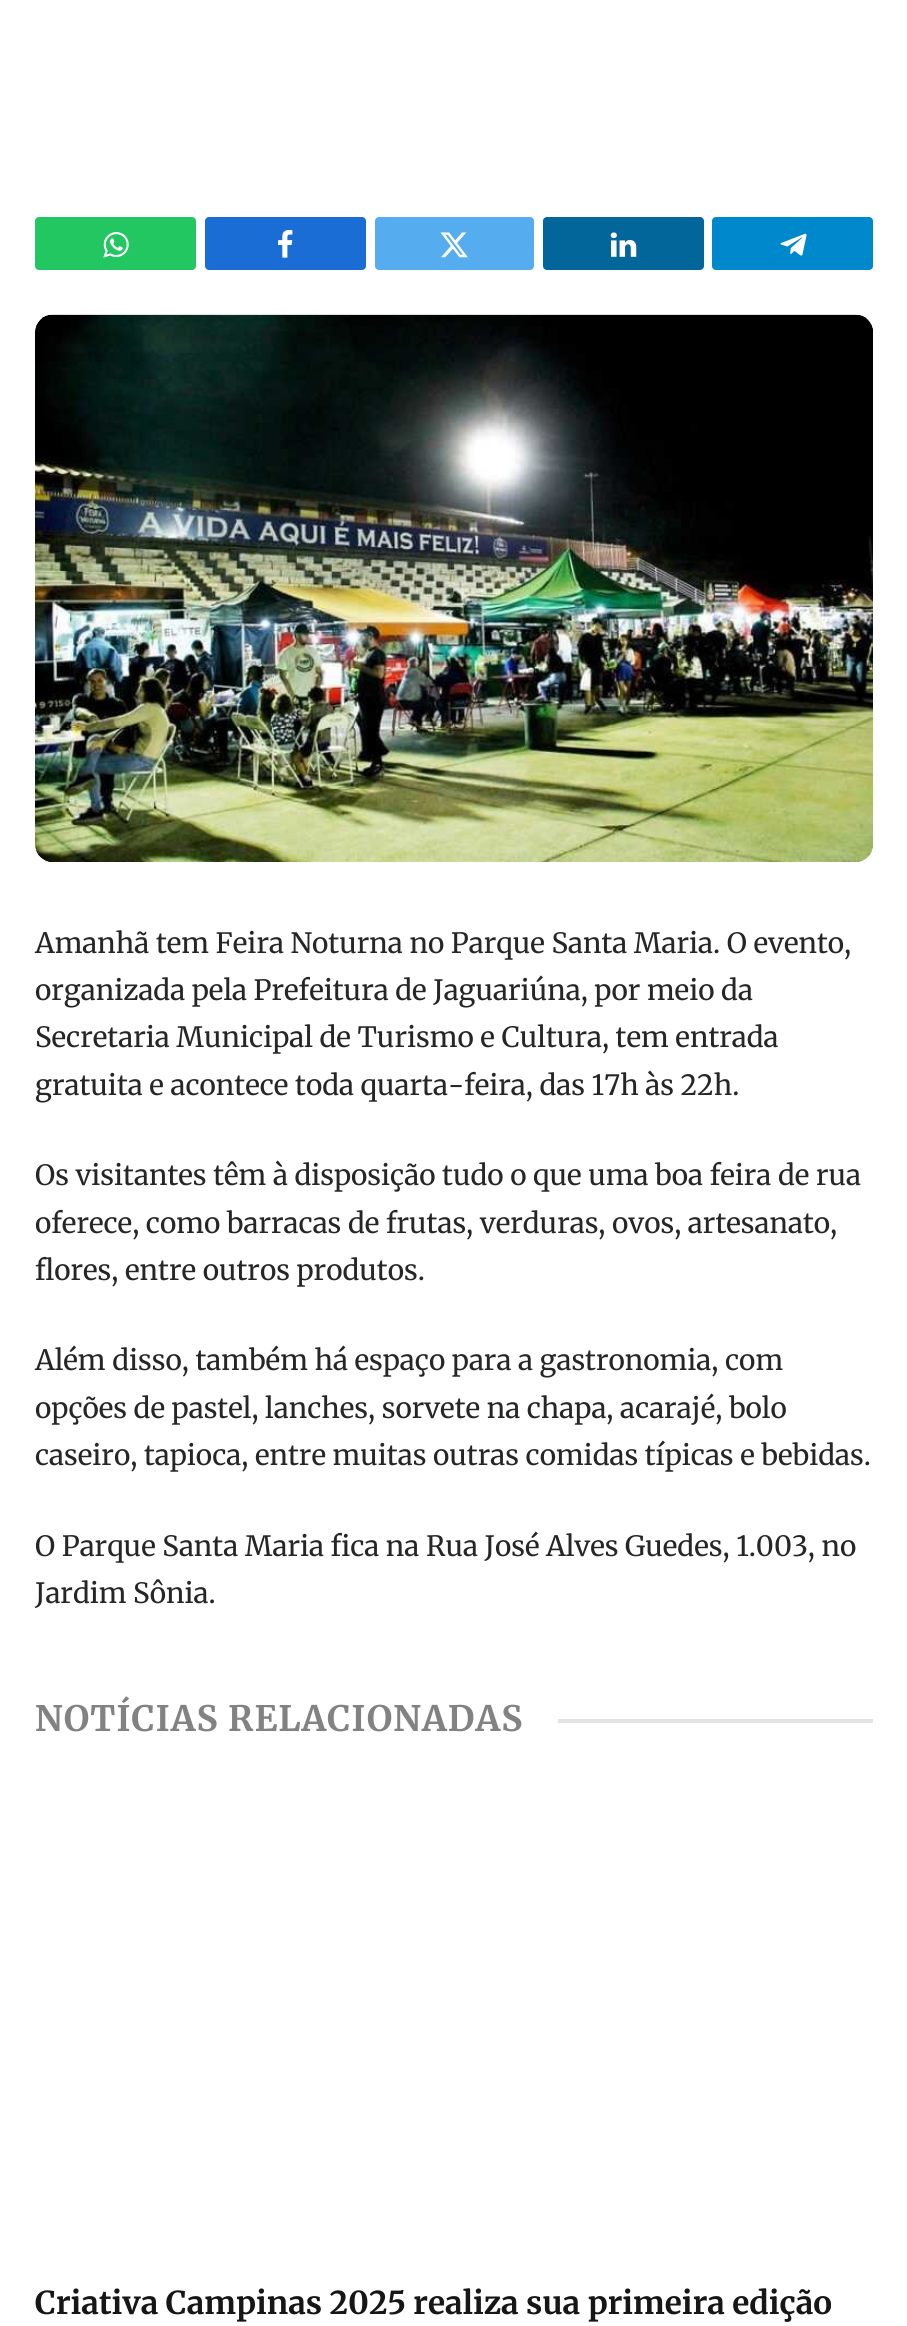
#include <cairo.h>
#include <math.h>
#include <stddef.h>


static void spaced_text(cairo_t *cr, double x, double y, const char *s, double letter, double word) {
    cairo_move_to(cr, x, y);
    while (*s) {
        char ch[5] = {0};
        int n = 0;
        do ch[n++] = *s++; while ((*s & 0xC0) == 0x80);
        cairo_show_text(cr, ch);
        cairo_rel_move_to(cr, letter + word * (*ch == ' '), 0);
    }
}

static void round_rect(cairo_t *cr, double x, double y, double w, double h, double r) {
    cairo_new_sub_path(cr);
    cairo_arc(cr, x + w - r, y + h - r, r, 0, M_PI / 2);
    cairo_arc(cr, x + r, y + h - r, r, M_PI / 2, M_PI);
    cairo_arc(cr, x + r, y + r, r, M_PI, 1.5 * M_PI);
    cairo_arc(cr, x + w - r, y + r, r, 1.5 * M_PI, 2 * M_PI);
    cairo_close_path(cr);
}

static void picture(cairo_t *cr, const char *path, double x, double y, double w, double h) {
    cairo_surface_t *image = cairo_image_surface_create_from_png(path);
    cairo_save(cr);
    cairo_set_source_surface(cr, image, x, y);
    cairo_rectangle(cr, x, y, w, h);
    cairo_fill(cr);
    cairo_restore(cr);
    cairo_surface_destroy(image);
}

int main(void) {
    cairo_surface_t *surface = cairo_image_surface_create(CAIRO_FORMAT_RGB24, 907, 2326);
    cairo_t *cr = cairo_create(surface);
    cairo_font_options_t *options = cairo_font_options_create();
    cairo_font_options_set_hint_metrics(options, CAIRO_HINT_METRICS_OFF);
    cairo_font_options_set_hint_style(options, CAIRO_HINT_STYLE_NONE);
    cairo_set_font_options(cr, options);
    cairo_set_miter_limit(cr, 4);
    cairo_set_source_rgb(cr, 1, 1, 1);
    cairo_paint(cr);
    cairo_set_source_rgb(cr, 0.137, 0.78, 0.38);
    round_rect(cr, 35, 217, 161, 53, 4);
    cairo_fill(cr);
    picture(cr, "img1.png", 103, 232, 26, 26);
    cairo_set_source_rgb(cr, 0.102, 0.427, 0.831);
    round_rect(cr, 205, 217, 161, 53, 4);
    cairo_fill(cr);
    picture(cr, "img2.png", 278, 230, 15, 28);
    cairo_set_source_rgb(cr, 0.333, 0.675, 0.937);
    round_rect(cr, 375, 217, 159, 53, 4);
    cairo_fill(cr);
    picture(cr, "img3.png", 440, 232, 28, 26);
    cairo_set_source_rgb(cr, 0.008, 0.4, 0.604);
    round_rect(cr, 543, 217, 161, 53, 4);
    cairo_fill(cr);
    picture(cr, "img4.png", 610, 232, 27, 25);
    cairo_set_source_rgb(cr, 0, 0.533, 0.8);
    round_rect(cr, 712, 217, 161, 53, 4);
    cairo_fill(cr);
    picture(cr, "img5.png", 780, 233, 27, 23);
    picture(cr, "img6.png", 35, 314, 838, 548);
    cairo_select_font_face(cr, "Merriweather", CAIRO_FONT_SLANT_NORMAL, CAIRO_FONT_WEIGHT_NORMAL);
    cairo_set_font_size(cr, 27.9);
    cairo_set_source_rgb(cr, 0.149, 0.149, 0.149);
    cairo_move_to(cr, 35, 953);
    cairo_show_text(cr, "Amanhã tem Feira Noturna no Parque Santa Maria. O evento,");
    cairo_move_to(cr, 35, 1000);
    cairo_show_text(cr, "organizada pela Prefeitura de Jaguariúna, por meio da");
    cairo_move_to(cr, 35, 1047);
    cairo_show_text(cr, "Secretaria Municipal de Turismo e Cultura, tem entrada");
    cairo_move_to(cr, 35, 1095);
    cairo_show_text(cr, "gratuita e acontece toda quarta-feira, das 17h às 22h.");
    cairo_move_to(cr, 35, 1185);
    cairo_show_text(cr, "Os visitantes têm à disposição tudo o que uma boa feira de rua");
    cairo_move_to(cr, 35, 1233);
    cairo_show_text(cr, "oferece, como barracas de frutas, verduras, ovos, artesanato,");
    cairo_move_to(cr, 35, 1280);
    cairo_show_text(cr, "flores, entre outros produtos.");
    cairo_move_to(cr, 35, 1370);
    cairo_show_text(cr, "Além disso, também há espaço para a gastronomia, com");
    cairo_move_to(cr, 35, 1418);
    cairo_show_text(cr, "opções de pastel, lanches, sorvete na chapa, acarajé, bolo");
    cairo_move_to(cr, 35, 1465);
    cairo_show_text(cr, "caseiro, tapioca, entre muitas outras comidas típicas e bebidas.");
    cairo_move_to(cr, 35, 1556);
    cairo_show_text(cr, "O Parque Santa Maria fica na Rua José Alves Guedes, 1.003, no");
    cairo_move_to(cr, 35, 1603);
    cairo_show_text(cr, "Jardim Sônia.");
    cairo_select_font_face(cr, "Merriweather", CAIRO_FONT_SLANT_NORMAL, CAIRO_FONT_WEIGHT_BOLD);
    cairo_set_font_size(cr, 35);
    cairo_set_source_rgb(cr, 0.51, 0.51, 0.51);
    spaced_text(cr, 35, 1731, "NOTÍCIAS RELACIONADAS", 1.05, 0);
    cairo_set_source_rgb(cr, 0.886, 0.886, 0.886);
    cairo_rectangle(cr, 558, 1719, 315, 4);
    cairo_fill(cr);
    cairo_set_font_size(cr, 31.5);
    cairo_set_source_rgb(cr, 0.086, 0.086, 0.086);
    cairo_move_to(cr, 35, 2314);
    cairo_show_text(cr, "Criativa Campinas 2025 realiza sua primeira edição");
    cairo_surface_write_to_png(surface, "page.png");
    cairo_font_options_destroy(options);
    cairo_destroy(cr);
    cairo_surface_destroy(surface);
    return 0;
}
